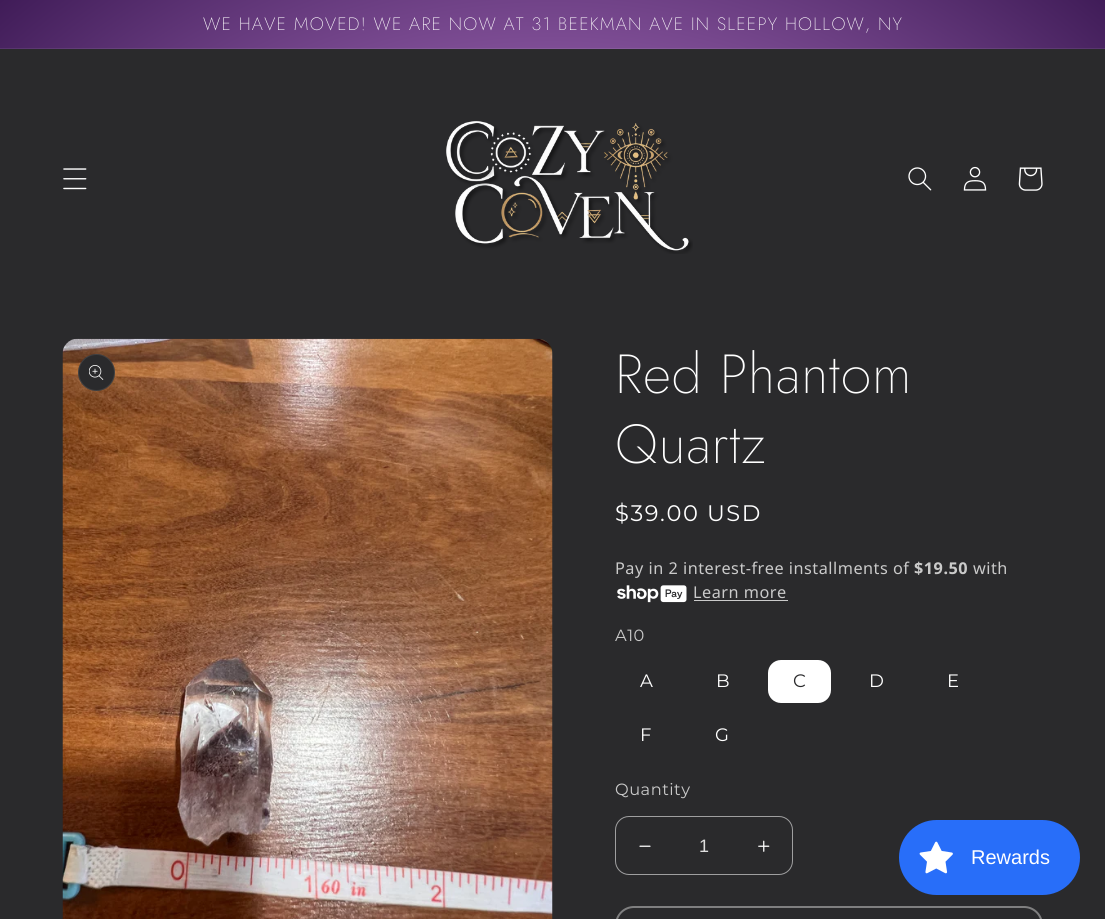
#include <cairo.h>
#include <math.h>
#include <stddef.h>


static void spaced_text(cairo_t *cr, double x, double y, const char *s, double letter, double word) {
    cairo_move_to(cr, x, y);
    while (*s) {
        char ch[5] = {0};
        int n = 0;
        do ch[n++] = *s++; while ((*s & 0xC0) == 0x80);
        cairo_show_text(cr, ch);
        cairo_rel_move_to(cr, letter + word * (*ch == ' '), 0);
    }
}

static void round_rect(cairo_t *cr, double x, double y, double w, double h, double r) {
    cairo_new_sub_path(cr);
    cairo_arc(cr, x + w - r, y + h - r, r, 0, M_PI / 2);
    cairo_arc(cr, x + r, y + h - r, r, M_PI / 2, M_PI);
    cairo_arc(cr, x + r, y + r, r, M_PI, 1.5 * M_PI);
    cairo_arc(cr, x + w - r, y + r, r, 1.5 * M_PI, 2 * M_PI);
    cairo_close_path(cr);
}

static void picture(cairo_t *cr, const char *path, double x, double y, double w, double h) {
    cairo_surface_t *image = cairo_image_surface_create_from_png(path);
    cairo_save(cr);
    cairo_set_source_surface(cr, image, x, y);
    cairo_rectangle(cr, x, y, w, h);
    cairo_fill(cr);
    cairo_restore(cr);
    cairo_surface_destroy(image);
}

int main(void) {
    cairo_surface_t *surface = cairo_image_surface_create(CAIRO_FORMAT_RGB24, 1105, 919);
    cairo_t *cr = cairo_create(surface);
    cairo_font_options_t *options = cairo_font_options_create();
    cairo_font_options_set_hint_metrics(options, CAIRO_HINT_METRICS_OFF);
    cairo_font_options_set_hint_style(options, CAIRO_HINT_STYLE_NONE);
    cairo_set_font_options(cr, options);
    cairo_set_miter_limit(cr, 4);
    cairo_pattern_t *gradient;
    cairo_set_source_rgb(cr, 0.165, 0.165, 0.173);
    cairo_paint(cr);
    gradient = cairo_pattern_create_radial(0, 0, 0, 0, 0, 1);
    cairo_pattern_set_matrix(gradient, &(cairo_matrix_t){1.0 / 781, 0, 0, 1.0 / 651, -1.0 * 553 / 781, -1.0 * 460 / 651});
    cairo_pattern_add_color_stop_rgba(gradient, 0, 0.906, 0.631, 0.988, 1);
    cairo_pattern_add_color_stop_rgba(gradient, 1, 0.251, 0.11, 0.345, 1);
    cairo_set_source(cr, gradient);
    cairo_pattern_destroy(gradient);
    cairo_rectangle(cr, 0, 0, 1105, 48);
    cairo_fill(cr);
    gradient = cairo_pattern_create_radial(0, 0, 0, 0, 0, 1);
    cairo_pattern_set_matrix(gradient, &(cairo_matrix_t){1.0 / 781, 0, 0, 1.0 / 651, -1.0 * 553 / 781, -1.0 * 460 / 651});
    cairo_pattern_add_color_stop_rgba(gradient, 0, 0.914, 0.663, 0.988, 1);
    cairo_pattern_add_color_stop_rgba(gradient, 1, 0.31, 0.18, 0.396, 1);
    cairo_set_source(cr, gradient);
    cairo_pattern_destroy(gradient);
    cairo_rectangle(cr, 0, 48, 1105, 1);
    cairo_fill(cr);
    cairo_select_font_face(cr, "Jost ExtraLight", CAIRO_FONT_SLANT_NORMAL, CAIRO_FONT_WEIGHT_NORMAL);
    cairo_set_font_size(cr, 17.9);
    cairo_set_source_rgb(cr, 1, 1, 1);
    spaced_text(cr, 203, 30, "WE HAVE MOVED! WE ARE NOW AT 31 BEEKMAN AVE IN SLEEPY HOLLOW, NY", 1.25, 0);
    picture(cr, "img1.png", 63, 168, 24, 22);
    picture(cr, "img2.png", 446, 120, 247, 134);
    picture(cr, "img3.png", 908, 167, 24, 24);
    picture(cr, "img4.png", 963, 166, 24, 25);
    picture(cr, "img5.png", 1018, 167, 25, 24);
    picture(cr, "img6.png", 62, 338, 491, 581);
    cairo_set_source_rgb(cr, 0.165, 0.165, 0.173);
    cairo_arc(cr, 96.5, 372.5, 18.5, 0, 2 * M_PI);
    cairo_fill(cr);
    cairo_arc(cr, 96.5, 372.5, 18, 0, 2 * M_PI);
    cairo_set_source_rgba(cr, 1, 1, 1, 0.1);
    cairo_set_line_width(cr, 1);
    cairo_stroke(cr);
    picture(cr, "img7.png", 89, 365, 15, 15);
    cairo_set_font_size(cr, 55);
    cairo_set_source_rgb(cr, 1, 1, 1);
    spaced_text(cr, 615, 393, "Red Phantom", 0.75, 0);
    spaced_text(cr, 615, 463, "Quartz", 0.75, 0);
    cairo_select_font_face(cr, "Montserrat", CAIRO_FONT_SLANT_NORMAL, CAIRO_FONT_WEIGHT_NORMAL);
    cairo_set_font_size(cr, 22.5);
    spaced_text(cr, 615, 521, "$39.00 USD", 1.6, 0);
    cairo_select_font_face(cr, "Noto Sans", CAIRO_FONT_SLANT_NORMAL, CAIRO_FONT_WEIGHT_NORMAL);
    cairo_set_font_size(cr, 16.25);
    cairo_set_source_rgb(cr, 0.792, 0.792, 0.792);
    spaced_text(cr, 615, 574, "Pay in 2 interest-free installments of", 0.5, 0);
    cairo_select_font_face(cr, "Noto Sans", CAIRO_FONT_SLANT_NORMAL, CAIRO_FONT_WEIGHT_BOLD);
    spaced_text(cr, 914, 574, "$19.50", 0.5, 0);
    cairo_select_font_face(cr, "Noto Sans", CAIRO_FONT_SLANT_NORMAL, CAIRO_FONT_WEIGHT_NORMAL);
    spaced_text(cr, 973, 574, "with", 0.5, 0);
    picture(cr, "img8.png", 617, 585, 70, 18);
    spaced_text(cr, 693, 598, "Learn more", 0.5, 0);
    cairo_rectangle(cr, 694, 600, 94, 1);
    cairo_fill(cr);
    cairo_select_font_face(cr, "Montserrat", CAIRO_FONT_SLANT_NORMAL, CAIRO_FONT_WEIGHT_NORMAL);
    spaced_text(cr, 615, 641, "A10", 0.5, 0);
    cairo_set_font_size(cr, 18);
    cairo_set_source_rgb(cr, 1, 1, 1);
    spaced_text(cr, 640, 687, "A", 1.25, 0);
    spaced_text(cr, 716, 687, "B", 1.25, 0);
    round_rect(cr, 768, 660, 63, 43, 13);
    cairo_fill(cr);
    cairo_set_source_rgb(cr, 0.165, 0.165, 0.173);
    spaced_text(cr, 793, 687, "C", 1.25, 0);
    cairo_set_source_rgb(cr, 1, 1, 1);
    spaced_text(cr, 869, 687, "D", 1.25, 0);
    spaced_text(cr, 947, 687, "E", 1.25, 0);
    spaced_text(cr, 640, 741, "F", 1.25, 0);
    spaced_text(cr, 715, 741, "G", 1.25, 0);
    cairo_set_font_size(cr, 16.25);
    cairo_set_source_rgb(cr, 0.792, 0.792, 0.792);
    spaced_text(cr, 615, 795, "Quantity", 0.5, 0);
    picture(cr, "img9.png", 639, 845, 12, 2);
    picture(cr, "img10.png", 758, 840, 12, 12);
    round_rect(cr, 615.5, 816.5, 177, 58, 13.5);
    cairo_set_source_rgb(cr, 0.624, 0.624, 0.627);
    cairo_stroke(cr);
    cairo_select_font_face(cr, "Liberation Sans", CAIRO_FONT_SLANT_NORMAL, CAIRO_FONT_WEIGHT_NORMAL);
    cairo_set_font_size(cr, 18);
    cairo_set_source_rgb(cr, 0.875, 0.875, 0.875);
    cairo_move_to(cr, 699, 852);
    cairo_show_text(cr, "1");
    round_rect(cr, 616, 907, 426, 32, 18);
    cairo_set_source_rgb(cr, 0.498, 0.498, 0.502);
    cairo_set_line_width(cr, 2);
    cairo_stroke(cr);
    cairo_set_source_rgb(cr, 0.157, 0.431, 0.973);
    round_rect(cr, 899, 820, 181, 75, 37.5);
    cairo_fill(cr);
    picture(cr, "img11.png", 919, 841, 34, 33);
    cairo_set_font_size(cr, 20);
    cairo_set_source_rgb(cr, 1, 1, 1);
    cairo_move_to(cr, 971, 864);
    cairo_show_text(cr, "Rewards");
    cairo_surface_write_to_png(surface, "page.png");
    cairo_font_options_destroy(options);
    cairo_destroy(cr);
    cairo_surface_destroy(surface);
    return 0;
}
